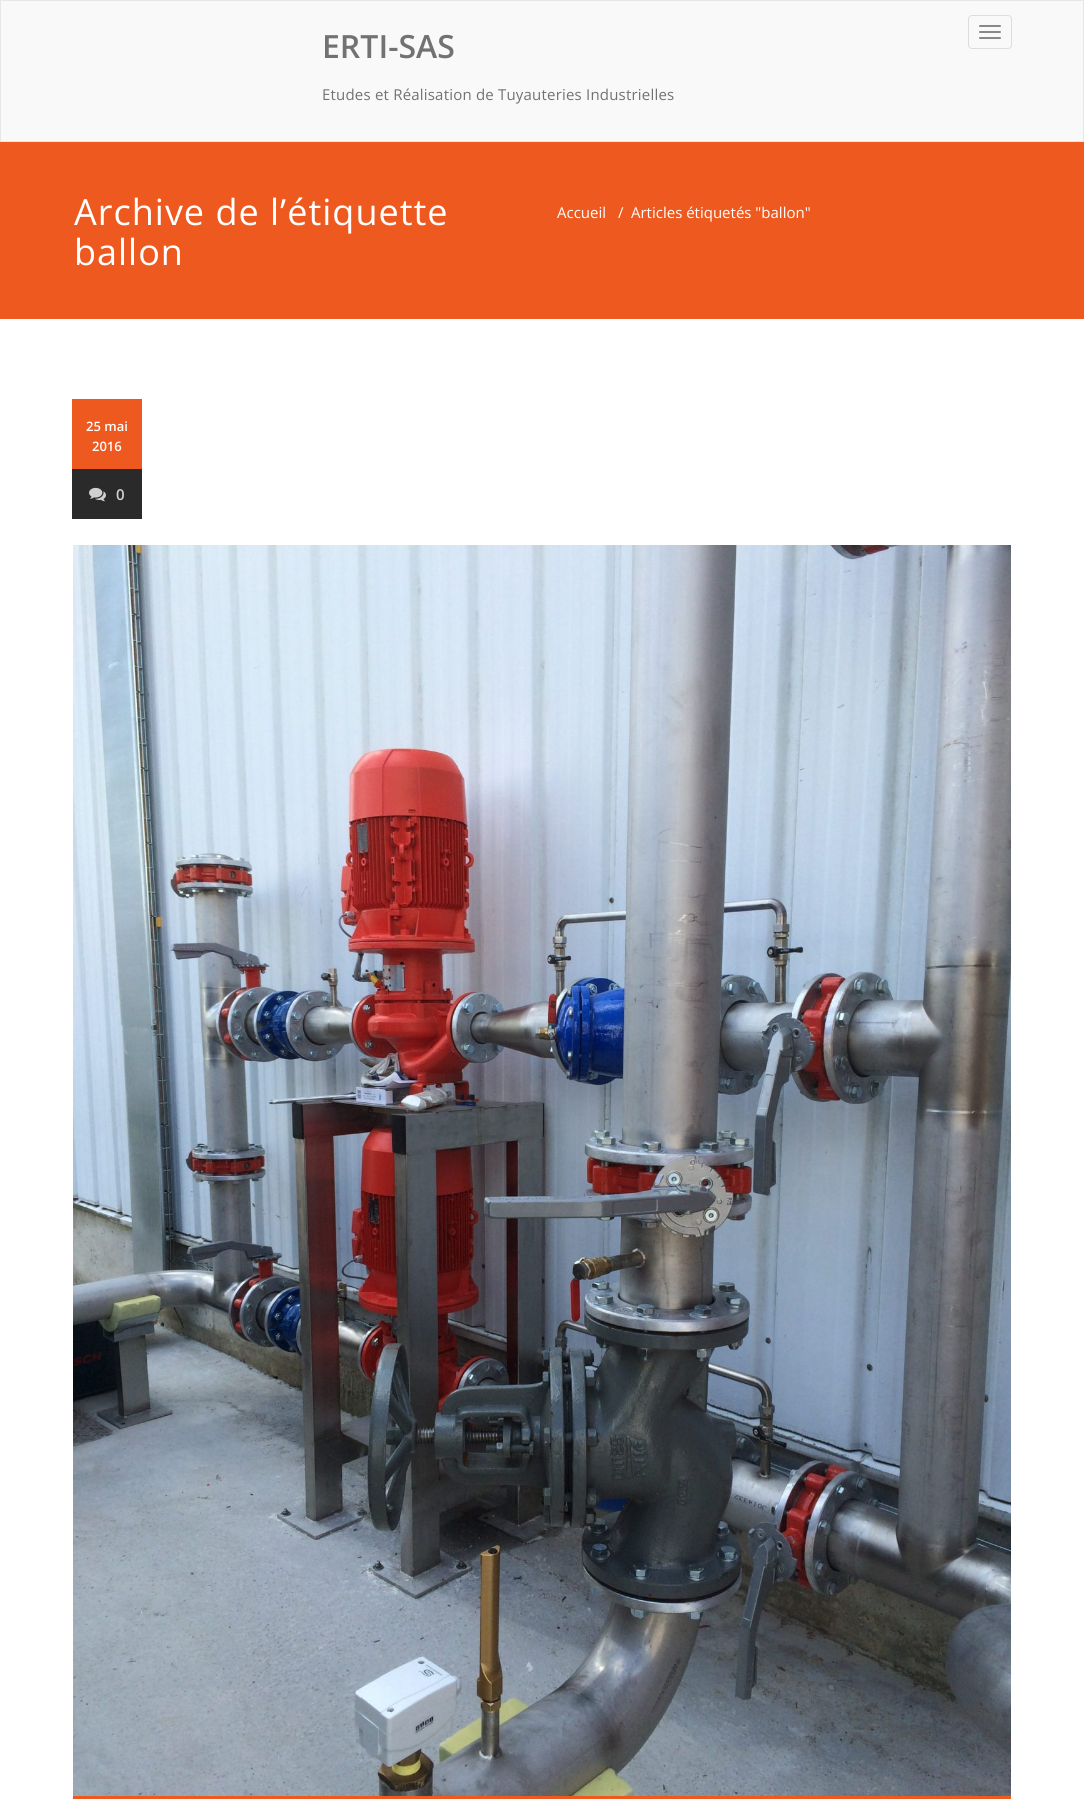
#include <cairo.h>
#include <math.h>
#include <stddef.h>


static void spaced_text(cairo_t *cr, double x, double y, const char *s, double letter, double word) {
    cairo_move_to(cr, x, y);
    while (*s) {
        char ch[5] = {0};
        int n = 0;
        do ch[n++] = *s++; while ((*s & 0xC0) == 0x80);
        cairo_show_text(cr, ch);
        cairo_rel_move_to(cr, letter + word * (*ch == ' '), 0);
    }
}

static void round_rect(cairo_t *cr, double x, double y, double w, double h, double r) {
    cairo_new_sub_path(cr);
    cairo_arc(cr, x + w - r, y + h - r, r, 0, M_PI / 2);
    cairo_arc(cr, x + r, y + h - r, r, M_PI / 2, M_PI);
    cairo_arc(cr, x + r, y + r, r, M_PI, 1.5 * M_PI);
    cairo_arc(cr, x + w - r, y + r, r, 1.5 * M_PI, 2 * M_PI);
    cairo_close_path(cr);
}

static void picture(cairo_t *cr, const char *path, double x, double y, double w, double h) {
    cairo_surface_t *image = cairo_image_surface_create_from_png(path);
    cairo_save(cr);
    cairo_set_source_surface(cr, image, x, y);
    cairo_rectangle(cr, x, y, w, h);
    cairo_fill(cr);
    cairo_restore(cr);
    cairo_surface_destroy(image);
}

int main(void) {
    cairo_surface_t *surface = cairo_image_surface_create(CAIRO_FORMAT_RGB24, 1084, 1810);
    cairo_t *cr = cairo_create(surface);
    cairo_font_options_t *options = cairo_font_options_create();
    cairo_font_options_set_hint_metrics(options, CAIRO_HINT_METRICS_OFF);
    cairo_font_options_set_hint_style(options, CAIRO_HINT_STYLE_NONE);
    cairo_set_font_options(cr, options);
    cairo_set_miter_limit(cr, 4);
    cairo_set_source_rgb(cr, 1, 1, 1);
    cairo_paint(cr);
    cairo_set_source_rgb(cr, 0.973, 0.973, 0.973);
    cairo_rectangle(cr, 0.5, 0.5, 1083, 141);
    cairo_fill_preserve(cr);
    cairo_set_source_rgb(cr, 0.906, 0.906, 0.906);
    cairo_set_line_width(cr, 1);
    cairo_stroke(cr);
    cairo_select_font_face(cr, "Open Sans SemiBold", CAIRO_FONT_SLANT_NORMAL, CAIRO_FONT_WEIGHT_NORMAL);
    cairo_set_font_size(cr, 32);
    cairo_set_source_rgb(cr, 0.447, 0.447, 0.447);
    cairo_move_to(cr, 322, 58);
    cairo_show_text(cr, "ERTI-SAS");
    cairo_select_font_face(cr, "Open Sans", CAIRO_FONT_SLANT_NORMAL, CAIRO_FONT_WEIGHT_NORMAL);
    cairo_set_font_size(cr, 15);
    spaced_text(cr, 322, 100, "Etudes et Réalisation de Tuyauteries Industrielles", 0.2, 0);
    round_rect(cr, 968.5, 15.5, 43, 33, 3.5);
    cairo_set_source_rgb(cr, 0.867, 0.867, 0.867);
    cairo_stroke(cr);
    cairo_set_source_rgb(cr, 0.533, 0.533, 0.533);
    round_rect(cr, 979, 25, 22, 2, 1);
    cairo_fill(cr);
    round_rect(cr, 979, 31, 22, 2, 1);
    cairo_fill(cr);
    round_rect(cr, 979, 37, 22, 2, 1);
    cairo_fill(cr);
    cairo_set_source_rgb(cr, 0.933, 0.349, 0.122);
    cairo_rectangle(cr, 0, 142, 1084, 177);
    cairo_fill(cr);
    cairo_set_font_size(cr, 36);
    cairo_set_source_rgb(cr, 1, 1, 1);
    spaced_text(cr, 74, 225, "Archive de l’étiquette", 1, 0);
    spaced_text(cr, 74, 265, "ballon", 1, 0);
    cairo_set_font_size(cr, 15);
    cairo_move_to(cr, 557, 218);
    cairo_show_text(cr, "Accueil");
    cairo_move_to(cr, 618, 218);
    cairo_show_text(cr, "/");
    cairo_move_to(cr, 631, 218);
    cairo_show_text(cr, "Articles étiquetés \"ballon\"");
    cairo_set_source_rgb(cr, 0.933, 0.349, 0.122);
    cairo_rectangle(cr, 72, 399, 70, 70);
    cairo_fill(cr);
    cairo_select_font_face(cr, "Open Sans SemiBold", CAIRO_FONT_SLANT_NORMAL, CAIRO_FONT_WEIGHT_NORMAL);
    cairo_set_font_size(cr, 13);
    cairo_set_source_rgb(cr, 1, 1, 1);
    cairo_move_to(cr, 86, 431);
    cairo_show_text(cr, "25 mai");
    cairo_move_to(cr, 92, 451);
    cairo_show_text(cr, "2016");
    cairo_set_source_rgb(cr, 0.165, 0.165, 0.165);
    cairo_rectangle(cr, 72, 469, 70, 50);
    cairo_fill(cr);
    picture(cr, "img1.png", 89, 487, 17, 15);
    cairo_set_font_size(cr, 15);
    cairo_set_source_rgb(cr, 0.816, 0.816, 0.816);
    cairo_move_to(cr, 116, 500);
    cairo_show_text(cr, "0");
    cairo_set_source_rgb(cr, 0.933, 0.349, 0.122);
    cairo_rectangle(cr, 73, 1796, 938, 3);
    cairo_fill(cr);
    picture(cr, "img2.png", 73, 545, 938, 1251);
    cairo_surface_write_to_png(surface, "page.png");
    cairo_font_options_destroy(options);
    cairo_destroy(cr);
    cairo_surface_destroy(surface);
    return 0;
}
